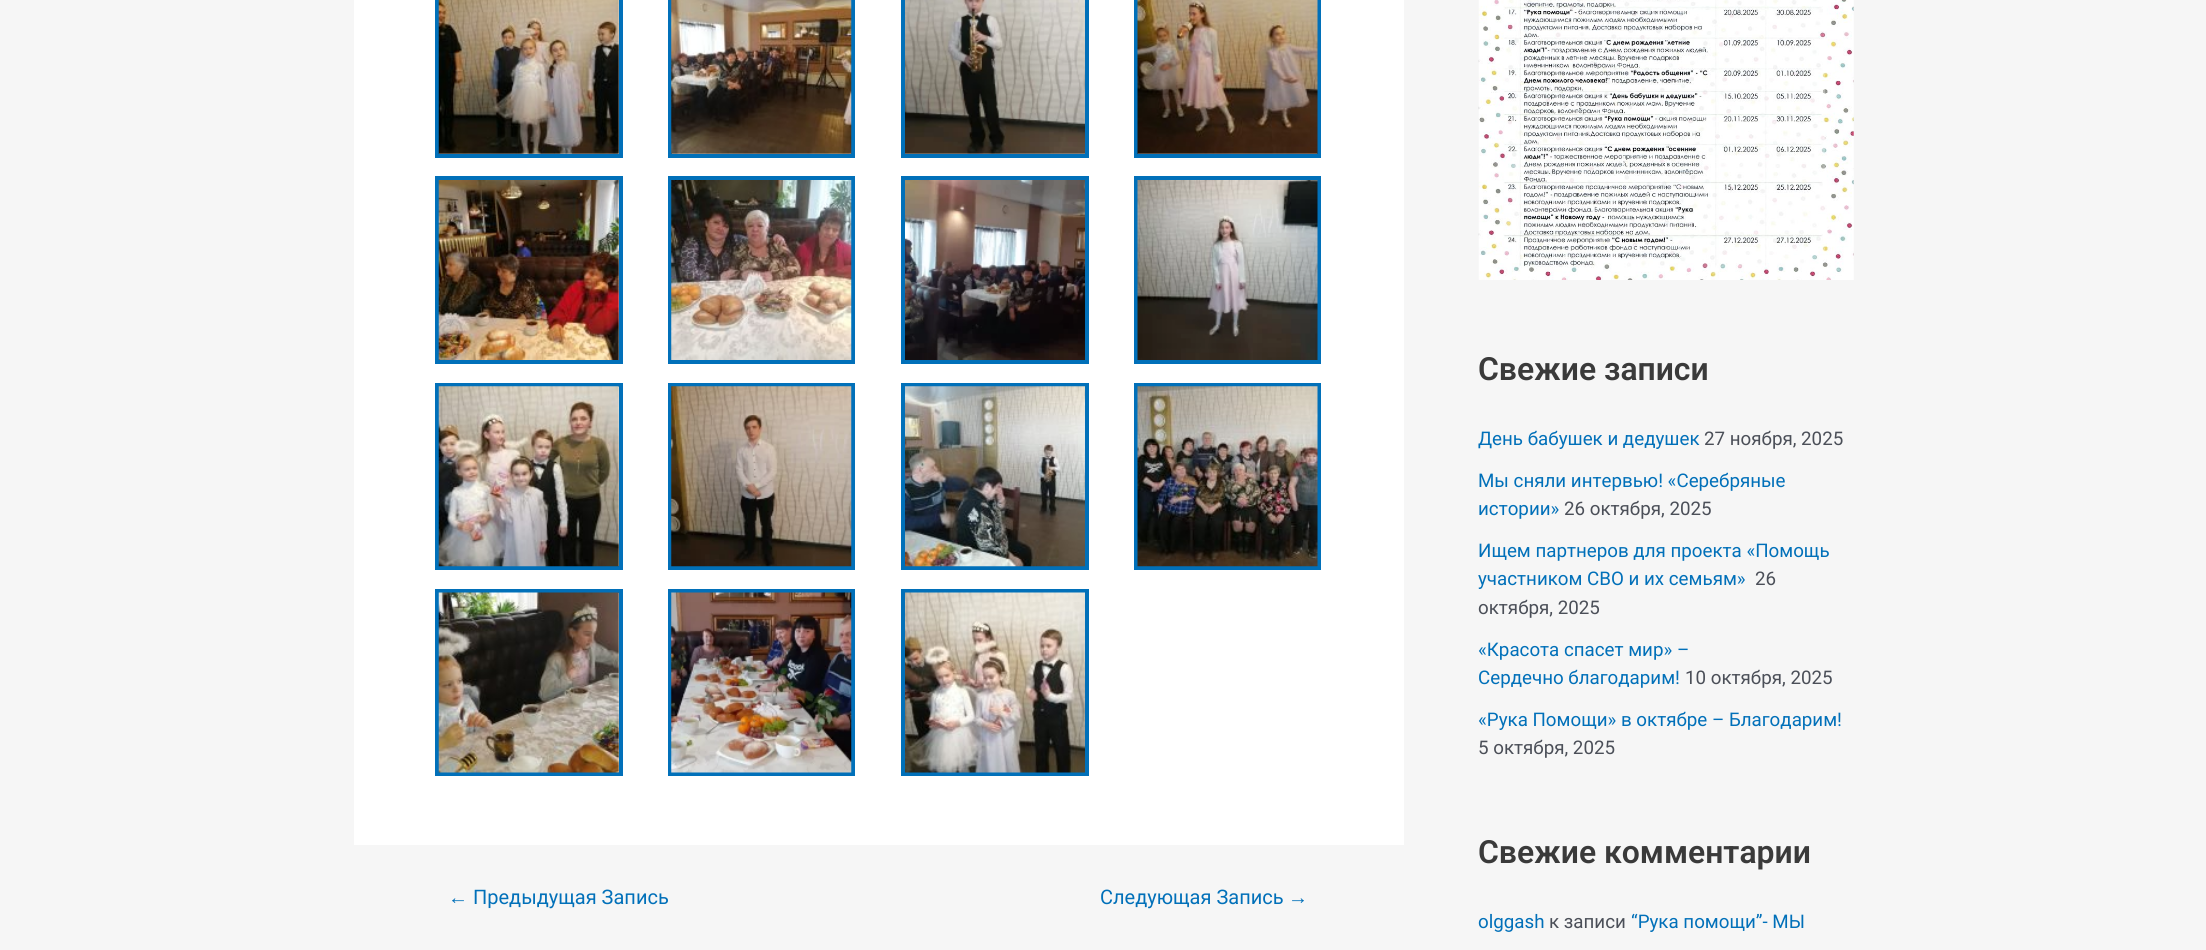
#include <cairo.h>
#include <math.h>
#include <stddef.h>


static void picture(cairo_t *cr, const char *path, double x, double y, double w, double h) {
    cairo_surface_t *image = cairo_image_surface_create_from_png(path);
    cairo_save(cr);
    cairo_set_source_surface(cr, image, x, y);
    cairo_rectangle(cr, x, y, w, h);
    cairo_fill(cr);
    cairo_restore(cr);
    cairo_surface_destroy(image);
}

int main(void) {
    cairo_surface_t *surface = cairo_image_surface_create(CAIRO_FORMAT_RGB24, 2206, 950);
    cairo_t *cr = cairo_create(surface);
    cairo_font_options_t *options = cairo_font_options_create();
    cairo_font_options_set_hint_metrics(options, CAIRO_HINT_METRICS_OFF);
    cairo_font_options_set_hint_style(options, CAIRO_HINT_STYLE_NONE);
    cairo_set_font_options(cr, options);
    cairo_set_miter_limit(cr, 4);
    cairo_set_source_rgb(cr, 0.961, 0.961, 0.961);
    cairo_paint(cr);
    cairo_set_source_rgb(cr, 1, 1, 1);
    cairo_rectangle(cr, 354, 0, 1050, 845);
    cairo_fill(cr);
    cairo_rectangle(cr, 437, -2, 184, 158);
    cairo_set_source_rgb(cr, 0.004, 0.439, 0.725);
    cairo_set_line_width(cr, 4);
    cairo_stroke(cr);
    picture(cr, "img1.png", 438, 0, 181, 154);
    cairo_rectangle(cr, 670, -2, 183, 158);
    cairo_stroke(cr);
    picture(cr, "img2.png", 671, 0, 181, 154);
    cairo_rectangle(cr, 903, -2, 184, 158);
    cairo_stroke(cr);
    picture(cr, "img3.png", 905, 0, 180, 154);
    cairo_rectangle(cr, 1136, -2, 183, 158);
    cairo_stroke(cr);
    picture(cr, "img4.png", 1137, 0, 181, 154);
    cairo_rectangle(cr, 437, 178, 184, 184);
    cairo_stroke(cr);
    picture(cr, "img5.png", 438, 180, 181, 180);
    cairo_rectangle(cr, 670, 178, 183, 184);
    cairo_stroke(cr);
    picture(cr, "img6.png", 671, 180, 181, 180);
    cairo_rectangle(cr, 903, 178, 184, 184);
    cairo_stroke(cr);
    picture(cr, "img7.png", 905, 180, 180, 180);
    cairo_rectangle(cr, 1136, 178, 183, 184);
    cairo_stroke(cr);
    picture(cr, "img8.png", 1137, 180, 181, 180);
    cairo_rectangle(cr, 437, 385, 184, 183);
    cairo_stroke(cr);
    picture(cr, "img9.png", 438, 386, 181, 181);
    cairo_rectangle(cr, 670, 385, 183, 183);
    cairo_stroke(cr);
    picture(cr, "img10.png", 671, 386, 181, 181);
    cairo_rectangle(cr, 903, 385, 184, 183);
    cairo_stroke(cr);
    picture(cr, "img11.png", 905, 386, 180, 181);
    cairo_rectangle(cr, 1136, 385, 183, 183);
    cairo_stroke(cr);
    picture(cr, "img12.png", 1137, 386, 181, 181);
    cairo_rectangle(cr, 437, 591, 184, 183);
    cairo_stroke(cr);
    picture(cr, "img13.png", 438, 592, 181, 181);
    cairo_rectangle(cr, 670, 591, 183, 183);
    cairo_stroke(cr);
    picture(cr, "img14.png", 671, 592, 181, 181);
    cairo_rectangle(cr, 903, 591, 184, 183);
    cairo_stroke(cr);
    picture(cr, "img15.png", 905, 592, 180, 181);
    cairo_select_font_face(cr, "Liberation Sans", CAIRO_FONT_SLANT_NORMAL, CAIRO_FONT_WEIGHT_NORMAL);
    cairo_set_font_size(cr, 20);
    cairo_move_to(cr, 448, 904);
    cairo_show_text(cr, "←");
    cairo_select_font_face(cr, "Roboto", CAIRO_FONT_SLANT_NORMAL, CAIRO_FONT_WEIGHT_NORMAL);
    cairo_move_to(cr, 473, 904);
    cairo_show_text(cr, "Предыдущая Запись");
    cairo_move_to(cr, 1100, 904);
    cairo_show_text(cr, "Следующая Запись");
    cairo_select_font_face(cr, "Liberation Sans", CAIRO_FONT_SLANT_NORMAL, CAIRO_FONT_WEIGHT_NORMAL);
    cairo_move_to(cr, 1288, 904);
    cairo_show_text(cr, "→");
    picture(cr, "img16.png", 1478, 0, 376, 280);
    cairo_select_font_face(cr, "Roboto SemiBold", CAIRO_FONT_SLANT_NORMAL, CAIRO_FONT_WEIGHT_NORMAL);
    cairo_set_font_size(cr, 31.9);
    cairo_set_source_rgb(cr, 0.227, 0.227, 0.227);
    cairo_move_to(cr, 1478, 380);
    cairo_show_text(cr, "Свежие записи");
    cairo_select_font_face(cr, "Roboto", CAIRO_FONT_SLANT_NORMAL, CAIRO_FONT_WEIGHT_NORMAL);
    cairo_set_font_size(cr, 18.75);
    cairo_set_source_rgb(cr, 0.004, 0.439, 0.725);
    cairo_move_to(cr, 1478, 445);
    cairo_show_text(cr, "День бабушек и дедушек");
    cairo_set_source_rgb(cr, 0.294, 0.31, 0.345);
    cairo_move_to(cr, 1704, 445);
    cairo_show_text(cr, "27 ноября, 2025");
    cairo_set_source_rgb(cr, 0.004, 0.439, 0.725);
    cairo_move_to(cr, 1478, 487);
    cairo_show_text(cr, "Мы сняли интервью! «Серебряные");
    cairo_move_to(cr, 1478, 515);
    cairo_show_text(cr, "истории»");
    cairo_set_source_rgb(cr, 0.294, 0.31, 0.345);
    cairo_move_to(cr, 1564, 515);
    cairo_show_text(cr, "26 октября, 2025");
    cairo_set_source_rgb(cr, 0.004, 0.439, 0.725);
    cairo_move_to(cr, 1478, 557);
    cairo_show_text(cr, "Ищем партнеров для проекта «Помощь");
    cairo_move_to(cr, 1478, 585);
    cairo_show_text(cr, "участником СВО и их семьям»");
    cairo_set_source_rgb(cr, 0.294, 0.31, 0.345);
    cairo_move_to(cr, 1755, 585);
    cairo_show_text(cr, "26");
    cairo_move_to(cr, 1478, 614);
    cairo_show_text(cr, "октября, 2025");
    cairo_set_source_rgb(cr, 0.004, 0.439, 0.725);
    cairo_move_to(cr, 1478, 656);
    cairo_show_text(cr, "«Красота спасет мир» –");
    cairo_move_to(cr, 1478, 684);
    cairo_show_text(cr, "Сердечно благодарим!");
    cairo_set_source_rgb(cr, 0.294, 0.31, 0.345);
    cairo_move_to(cr, 1685, 684);
    cairo_show_text(cr, "10 октября, 2025");
    cairo_set_source_rgb(cr, 0.004, 0.439, 0.725);
    cairo_move_to(cr, 1478, 726);
    cairo_show_text(cr, "«Рука Помощи» в октябре – Благодарим!");
    cairo_set_source_rgb(cr, 0.294, 0.31, 0.345);
    cairo_move_to(cr, 1478, 754);
    cairo_show_text(cr, "5 октября, 2025");
    cairo_select_font_face(cr, "Roboto SemiBold", CAIRO_FONT_SLANT_NORMAL, CAIRO_FONT_WEIGHT_NORMAL);
    cairo_set_font_size(cr, 31.9);
    cairo_set_source_rgb(cr, 0.227, 0.227, 0.227);
    cairo_move_to(cr, 1478, 863);
    cairo_show_text(cr, "Свежие комментарии");
    cairo_select_font_face(cr, "Roboto", CAIRO_FONT_SLANT_NORMAL, CAIRO_FONT_WEIGHT_NORMAL);
    cairo_set_font_size(cr, 18.75);
    cairo_set_source_rgb(cr, 0.004, 0.439, 0.725);
    cairo_move_to(cr, 1478, 928);
    cairo_show_text(cr, "olggash");
    cairo_set_source_rgb(cr, 0.294, 0.31, 0.345);
    cairo_move_to(cr, 1549, 928);
    cairo_show_text(cr, "к записи");
    cairo_set_source_rgb(cr, 0.004, 0.439, 0.725);
    cairo_move_to(cr, 1631, 928);
    cairo_show_text(cr, "“Рука помощи”- МЫ");
    cairo_surface_write_to_png(surface, "page.png");
    cairo_font_options_destroy(options);
    cairo_destroy(cr);
    cairo_surface_destroy(surface);
    return 0;
}
